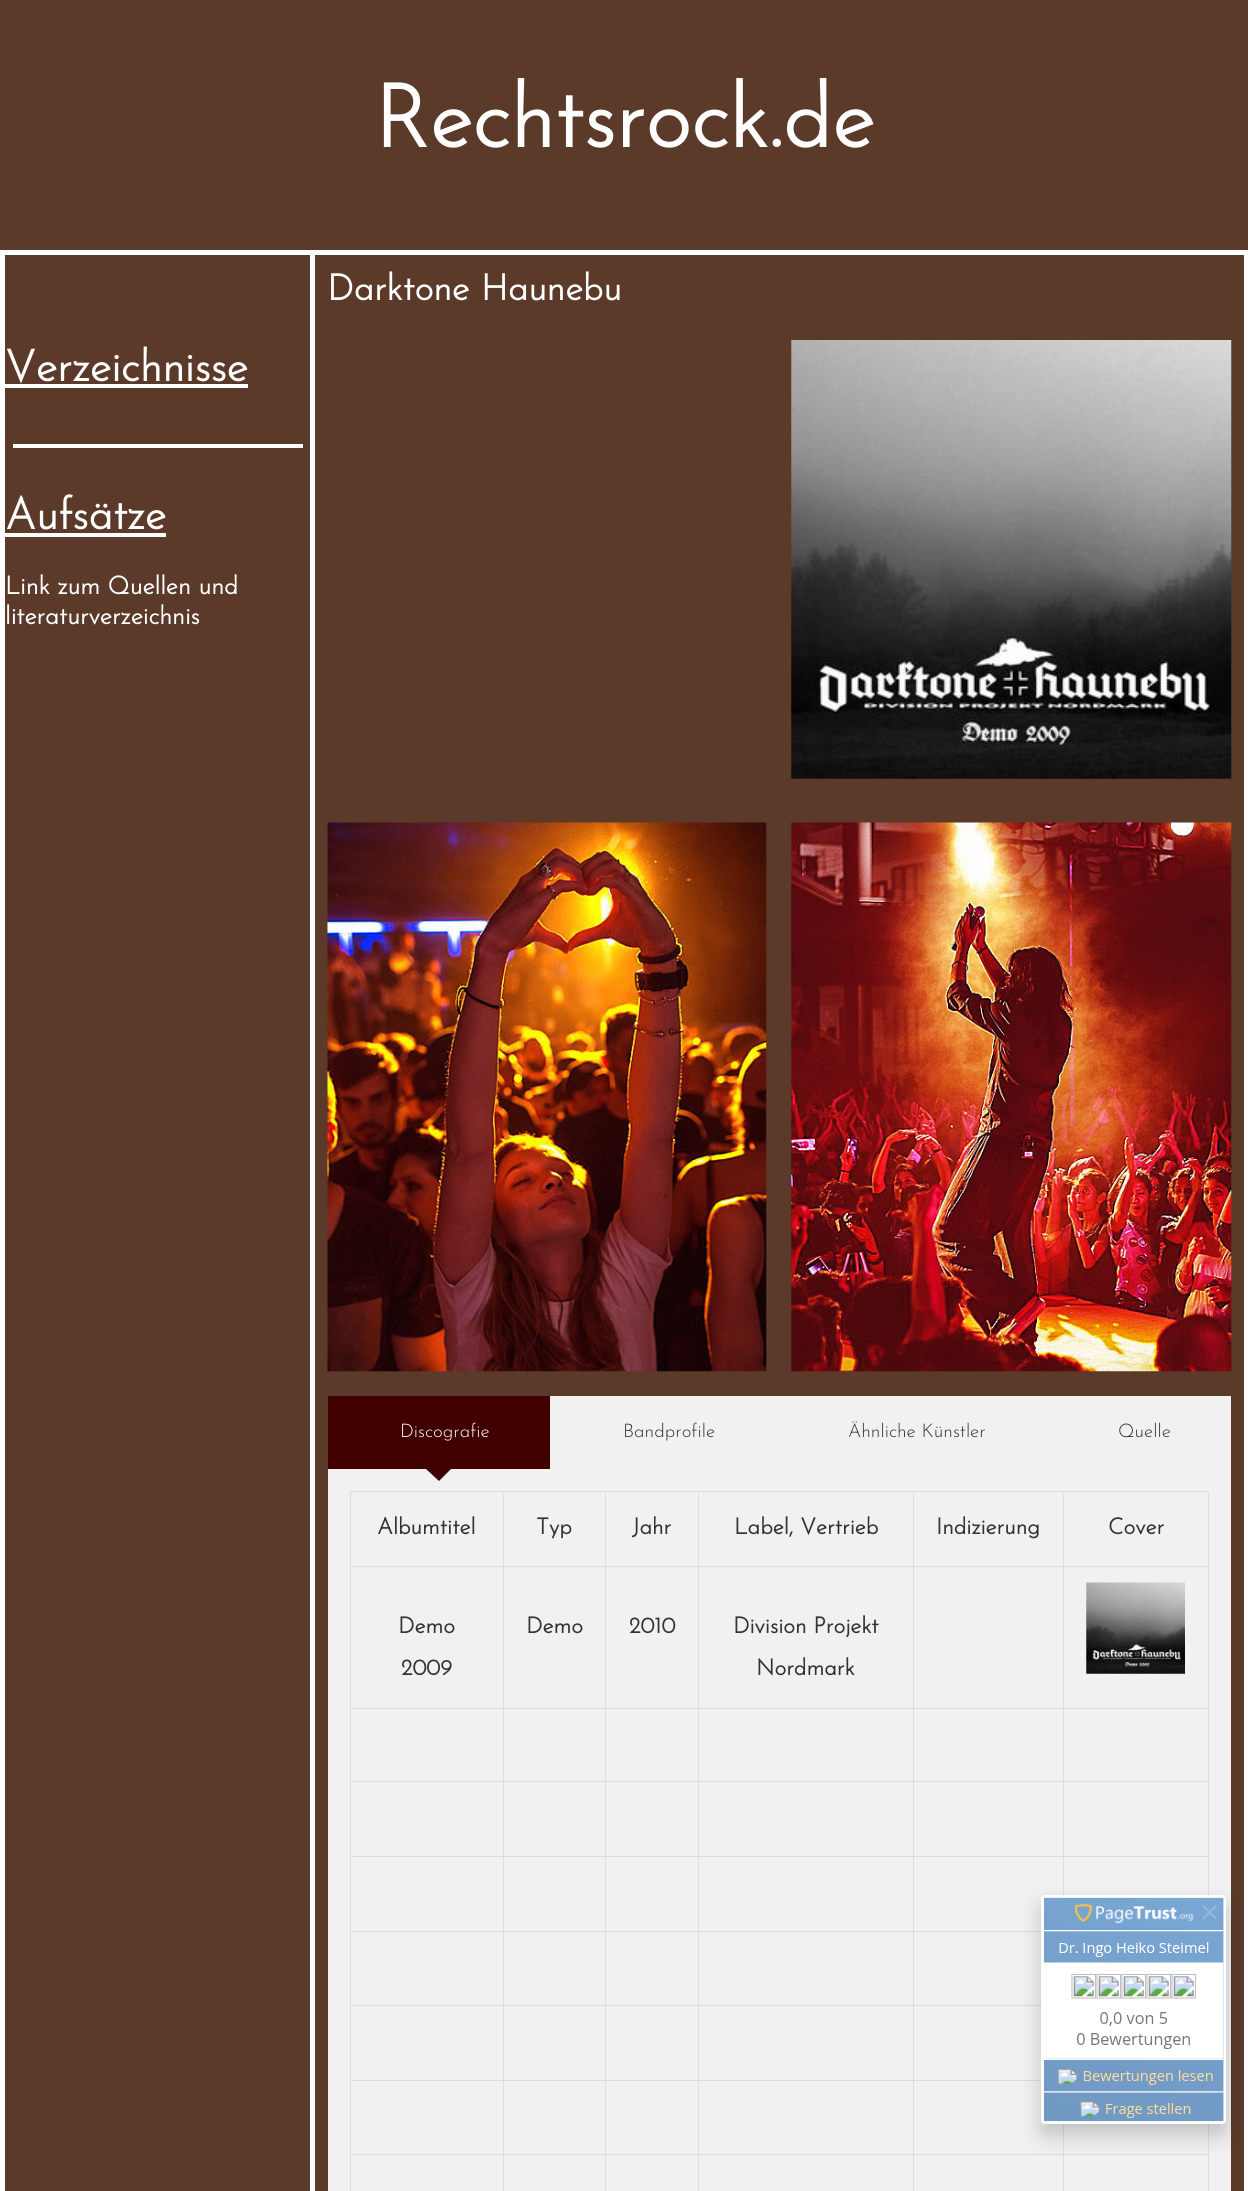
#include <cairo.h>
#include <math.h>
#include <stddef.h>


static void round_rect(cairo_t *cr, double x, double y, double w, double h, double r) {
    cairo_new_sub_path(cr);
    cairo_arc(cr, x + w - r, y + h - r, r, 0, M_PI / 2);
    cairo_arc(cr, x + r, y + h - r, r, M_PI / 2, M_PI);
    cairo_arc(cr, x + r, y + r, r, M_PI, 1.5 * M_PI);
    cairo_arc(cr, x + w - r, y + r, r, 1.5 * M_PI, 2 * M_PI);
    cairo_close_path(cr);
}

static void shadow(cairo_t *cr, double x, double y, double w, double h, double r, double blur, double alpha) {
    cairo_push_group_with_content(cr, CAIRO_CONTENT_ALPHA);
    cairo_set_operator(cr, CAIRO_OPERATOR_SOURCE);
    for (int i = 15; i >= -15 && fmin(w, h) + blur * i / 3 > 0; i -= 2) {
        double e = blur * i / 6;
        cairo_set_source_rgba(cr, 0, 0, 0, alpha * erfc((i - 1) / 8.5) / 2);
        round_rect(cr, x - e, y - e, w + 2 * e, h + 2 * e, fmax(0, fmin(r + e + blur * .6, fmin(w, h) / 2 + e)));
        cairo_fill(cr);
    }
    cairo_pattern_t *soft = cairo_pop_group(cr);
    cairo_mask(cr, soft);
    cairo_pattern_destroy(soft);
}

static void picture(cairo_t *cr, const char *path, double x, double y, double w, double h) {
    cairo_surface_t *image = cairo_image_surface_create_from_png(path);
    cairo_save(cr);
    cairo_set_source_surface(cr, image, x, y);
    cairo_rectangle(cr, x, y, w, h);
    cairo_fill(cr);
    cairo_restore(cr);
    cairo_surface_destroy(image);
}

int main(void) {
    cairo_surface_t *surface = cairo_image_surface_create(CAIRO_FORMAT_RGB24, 1248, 2191);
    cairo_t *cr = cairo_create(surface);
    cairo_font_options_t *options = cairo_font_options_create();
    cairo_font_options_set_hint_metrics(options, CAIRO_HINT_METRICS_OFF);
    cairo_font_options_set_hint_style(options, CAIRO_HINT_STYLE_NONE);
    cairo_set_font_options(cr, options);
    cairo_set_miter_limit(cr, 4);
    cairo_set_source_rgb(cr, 0.357, 0.227, 0.161);
    cairo_paint(cr);
    cairo_select_font_face(cr, "Josefin Sans", CAIRO_FONT_SLANT_NORMAL, CAIRO_FONT_WEIGHT_BOLD);
    cairo_set_font_size(cr, 87.5);
    cairo_set_source_rgb(cr, 1, 1, 1);
    cairo_move_to(cr, 374, 147);
    cairo_show_text(cr, "Rechtsrock.de");
    cairo_rectangle(cr, 2.5, 252.5, 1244, 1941);
    cairo_set_line_width(cr, 5);
    cairo_stroke(cr);
    cairo_rectangle(cr, 310, 255, 5, 1936);
    cairo_fill(cr);
    cairo_set_font_size(cr, 43.75);
    cairo_move_to(cr, 5, 381);
    cairo_show_text(cr, "Verzeichnisse");
    cairo_rectangle(cr, 5, 384, 243, 4);
    cairo_fill(cr);
    cairo_rectangle(cr, 13, 444, 290, 4);
    cairo_fill(cr);
    cairo_move_to(cr, 5, 529);
    cairo_show_text(cr, "Aufsätze");
    cairo_rectangle(cr, 5, 533, 161, 4);
    cairo_fill(cr);
    cairo_set_font_size(cr, 25);
    cairo_move_to(cr, 5, 594);
    cairo_show_text(cr, "Link zum Quellen und");
    cairo_move_to(cr, 5, 624);
    cairo_show_text(cr, "literaturverzeichnis");
    cairo_set_font_size(cr, 36.25);
    cairo_move_to(cr, 327, 300);
    cairo_show_text(cr, "Darktone Haunebu");
    picture(cr, "img1.png", 791, 340, 441, 439);
    picture(cr, "img2.png", 327, 822, 440, 550);
    picture(cr, "img3.png", 791, 822, 441, 550);
    cairo_set_source_rgb(cr, 0.251, 0, 0);
    cairo_rectangle(cr, 328, 1396, 222, 73);
    cairo_fill(cr);
    cairo_select_font_face(cr, "Josefin Sans Light", CAIRO_FONT_SLANT_NORMAL, CAIRO_FONT_WEIGHT_NORMAL);
    cairo_set_font_size(cr, 18.75);
    cairo_set_source_rgb(cr, 1, 1, 1);
    cairo_move_to(cr, 400, 1437);
    cairo_show_text(cr, "Discografie");
    cairo_set_source_rgb(cr, 0.945, 0.945, 0.945);
    cairo_rectangle(cr, 328, 1469, 903, 722);
    cairo_fill(cr);
    cairo_set_source_rgb(cr, 0.251, 0, 0);
    cairo_new_path(cr);
    cairo_move_to(cr, 426, 1469);
    cairo_line_to(cr, 451, 1469);
    cairo_line_to(cr, 439, 1481);
    cairo_close_path(cr);
    cairo_fill(cr);
    cairo_set_source_rgb(cr, 0.945, 0.945, 0.945);
    cairo_rectangle(cr, 550, 1396, 681, 73);
    cairo_fill(cr);
    cairo_set_source_rgb(cr, 0.2, 0.2, 0.2);
    cairo_move_to(cr, 623, 1437);
    cairo_show_text(cr, "Bandprofile");
    cairo_move_to(cr, 848, 1437);
    cairo_show_text(cr, "Ähnliche Künstler");
    cairo_move_to(cr, 1118, 1437);
    cairo_show_text(cr, "Quelle");
    cairo_set_source_rgb(cr, 0.867, 0.867, 0.867);
    cairo_rectangle(cr, 350, 1491, 859, 1);
    cairo_fill(cr);
    cairo_rectangle(cr, 350, 1491, 1, 700);
    cairo_fill(cr);
    cairo_rectangle(cr, 503, 1493, 1, 698);
    cairo_fill(cr);
    cairo_rectangle(cr, 351, 1566, 153, 1);
    cairo_fill(cr);
    cairo_select_font_face(cr, "Josefin Sans", CAIRO_FONT_SLANT_NORMAL, CAIRO_FONT_WEIGHT_BOLD);
    cairo_set_font_size(cr, 22.5);
    cairo_set_source_rgb(cr, 0.2, 0.2, 0.2);
    cairo_move_to(cr, 377, 1534);
    cairo_show_text(cr, "Albumtitel");
    cairo_set_source_rgb(cr, 0.867, 0.867, 0.867);
    cairo_rectangle(cr, 605, 1493, 1, 698);
    cairo_fill(cr);
    cairo_rectangle(cr, 504, 1566, 102, 1);
    cairo_fill(cr);
    cairo_set_source_rgb(cr, 0.2, 0.2, 0.2);
    cairo_move_to(cr, 536, 1534);
    cairo_show_text(cr, "Typ");
    cairo_set_source_rgb(cr, 0.867, 0.867, 0.867);
    cairo_rectangle(cr, 698, 1493, 1, 698);
    cairo_fill(cr);
    cairo_rectangle(cr, 606, 1566, 93, 1);
    cairo_fill(cr);
    cairo_set_source_rgb(cr, 0.2, 0.2, 0.2);
    cairo_move_to(cr, 632, 1534);
    cairo_show_text(cr, "Jahr");
    cairo_set_source_rgb(cr, 0.867, 0.867, 0.867);
    cairo_rectangle(cr, 913, 1493, 1, 698);
    cairo_fill(cr);
    cairo_rectangle(cr, 699, 1566, 215, 1);
    cairo_fill(cr);
    cairo_set_source_rgb(cr, 0.2, 0.2, 0.2);
    cairo_move_to(cr, 734, 1534);
    cairo_show_text(cr, "Label, Vertrieb");
    cairo_set_source_rgb(cr, 0.867, 0.867, 0.867);
    cairo_rectangle(cr, 1063, 1493, 1, 402);
    cairo_fill(cr);
    cairo_rectangle(cr, 914, 1566, 150, 1);
    cairo_fill(cr);
    cairo_set_source_rgb(cr, 0.2, 0.2, 0.2);
    cairo_move_to(cr, 936, 1534);
    cairo_show_text(cr, "Indizierung");
    cairo_set_source_rgb(cr, 0.867, 0.867, 0.867);
    cairo_rectangle(cr, 1208, 1493, 1, 402);
    cairo_fill(cr);
    cairo_rectangle(cr, 1064, 1566, 145, 1);
    cairo_fill(cr);
    cairo_set_source_rgb(cr, 0.2, 0.2, 0.2);
    cairo_move_to(cr, 1108, 1534);
    cairo_show_text(cr, "Cover");
    cairo_set_source_rgb(cr, 0.867, 0.867, 0.867);
    cairo_rectangle(cr, 351, 1708, 858, 1);
    cairo_fill(cr);
    cairo_set_source_rgb(cr, 0.2, 0.2, 0.2);
    cairo_move_to(cr, 398, 1633);
    cairo_show_text(cr, "Demo");
    cairo_move_to(cr, 401, 1675);
    cairo_show_text(cr, "2009");
    cairo_move_to(cr, 526, 1633);
    cairo_show_text(cr, "Demo");
    cairo_move_to(cr, 629, 1633);
    cairo_show_text(cr, "2010");
    cairo_move_to(cr, 733, 1633);
    cairo_show_text(cr, "Division Projekt");
    cairo_move_to(cr, 756, 1675);
    cairo_show_text(cr, "Nordmark");
    picture(cr, "img4.png", 1086, 1582, 99, 92);
    cairo_set_source_rgb(cr, 0.867, 0.867, 0.867);
    cairo_rectangle(cr, 351, 1781, 858, 1);
    cairo_fill(cr);
    cairo_rectangle(cr, 351, 1856, 858, 1);
    cairo_fill(cr);
    cairo_rectangle(cr, 351, 1931, 690, 1);
    cairo_fill(cr);
    cairo_rectangle(cr, 351, 2005, 690, 1);
    cairo_fill(cr);
    cairo_rectangle(cr, 351, 2080, 690, 1);
    cairo_fill(cr);
    cairo_rectangle(cr, 351, 2154, 563, 1);
    cairo_fill(cr);
    cairo_rectangle(cr, 1063, 2124, 1, 67);
    cairo_fill(cr);
    cairo_rectangle(cr, 914, 2154, 150, 1);
    cairo_fill(cr);
    cairo_rectangle(cr, 1208, 2124, 1, 67);
    cairo_fill(cr);
    cairo_rectangle(cr, 1064, 2154, 145, 1);
    cairo_fill(cr);
    cairo_set_source_rgb(cr, 0, 0, 0);
    shadow(cr, 1041, 1906, 185, 229, 4, 11, 0.2);
    round_rect(cr, 1042.5, 1896.5, 182, 226, 2.5);
    cairo_set_source_rgb(cr, 1, 1, 1);
    cairo_set_line_width(cr, 3);
    cairo_stroke(cr);
    picture(cr, "img5.png", 1044, 1897, 180, 225);
    cairo_surface_write_to_png(surface, "page.png");
    cairo_font_options_destroy(options);
    cairo_destroy(cr);
    cairo_surface_destroy(surface);
    return 0;
}
